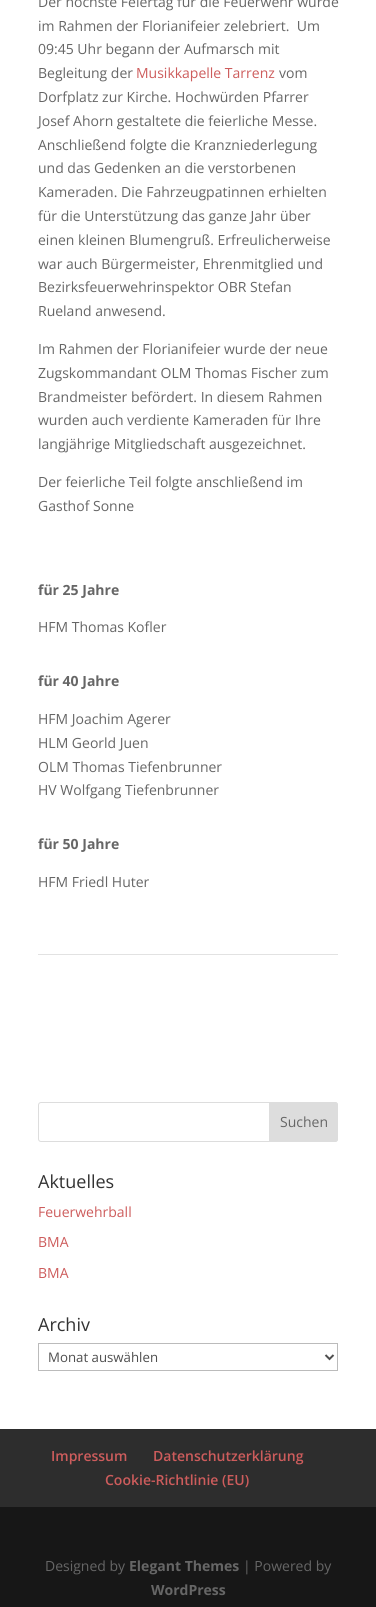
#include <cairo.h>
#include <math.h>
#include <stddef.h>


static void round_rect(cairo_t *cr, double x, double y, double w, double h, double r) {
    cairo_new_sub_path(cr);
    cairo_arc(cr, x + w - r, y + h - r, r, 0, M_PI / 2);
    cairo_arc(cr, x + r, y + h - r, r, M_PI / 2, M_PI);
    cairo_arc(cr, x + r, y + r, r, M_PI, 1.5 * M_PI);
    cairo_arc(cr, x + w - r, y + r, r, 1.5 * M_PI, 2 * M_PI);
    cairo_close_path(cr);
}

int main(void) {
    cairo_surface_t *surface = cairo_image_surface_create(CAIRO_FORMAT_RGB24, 376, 1607);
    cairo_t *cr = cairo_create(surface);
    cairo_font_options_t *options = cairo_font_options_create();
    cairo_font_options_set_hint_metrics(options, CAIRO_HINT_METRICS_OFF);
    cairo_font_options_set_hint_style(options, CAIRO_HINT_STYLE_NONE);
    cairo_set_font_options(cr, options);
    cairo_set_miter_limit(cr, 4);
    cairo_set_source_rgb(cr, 1, 1, 1);
    cairo_paint(cr);
    cairo_select_font_face(cr, "Open Sans", CAIRO_FONT_SLANT_NORMAL, CAIRO_FONT_WEIGHT_NORMAL);
    cairo_set_font_size(cr, 14);
    cairo_set_source_rgb(cr, 0.4, 0.4, 0.4);
    cairo_move_to(cr, 38, 7);
    cairo_show_text(cr, "Der höchste Feiertag für die Feuerwehr wurde");
    cairo_move_to(cr, 38, 31);
    cairo_show_text(cr, "im Rahmen der Florianifeier zelebriert.  Um");
    cairo_move_to(cr, 38, 54);
    cairo_show_text(cr, "09:45 Uhr begann der Aufmarsch mit");
    cairo_move_to(cr, 38, 78);
    cairo_show_text(cr, "Begleitung der");
    cairo_set_source_rgb(cr, 0.804, 0.361, 0.361);
    cairo_move_to(cr, 136, 78);
    cairo_show_text(cr, "Musikkapelle Tarrenz");
    cairo_set_source_rgb(cr, 0.4, 0.4, 0.4);
    cairo_move_to(cr, 279, 78);
    cairo_show_text(cr, "vom");
    cairo_move_to(cr, 38, 102);
    cairo_show_text(cr, "Dorfplatz zur Kirche. Hochwürden Pfarrer");
    cairo_move_to(cr, 38, 126);
    cairo_show_text(cr, "Josef Ahorn gestaltete die feierliche Messe.");
    cairo_move_to(cr, 38, 150);
    cairo_show_text(cr, "Anschließend folgte die Kranzniederlegung");
    cairo_move_to(cr, 38, 173);
    cairo_show_text(cr, "und das Gedenken an die verstorbenen");
    cairo_move_to(cr, 38, 197);
    cairo_show_text(cr, "Kameraden. Die Fahrzeugpatinnen erhielten");
    cairo_move_to(cr, 38, 221);
    cairo_show_text(cr, "für die Unterstützung das ganze Jahr über");
    cairo_move_to(cr, 38, 245);
    cairo_show_text(cr, "einen kleinen Blumengruß. Erfreulicherweise");
    cairo_move_to(cr, 38, 269);
    cairo_show_text(cr, "war auch Bürgermeister, Ehrenmitglied und");
    cairo_move_to(cr, 38, 292);
    cairo_show_text(cr, "Bezirksfeuerwehrinspektor OBR Stefan");
    cairo_move_to(cr, 38, 316);
    cairo_show_text(cr, "Rueland anwesend.");
    cairo_move_to(cr, 38, 354);
    cairo_show_text(cr, "Im Rahmen der Florianifeier wurde der neue");
    cairo_move_to(cr, 38, 378);
    cairo_show_text(cr, "Zugskommandant OLM Thomas Fischer zum");
    cairo_move_to(cr, 38, 402);
    cairo_show_text(cr, "Brandmeister befördert. In diesem Rahmen");
    cairo_move_to(cr, 38, 425);
    cairo_show_text(cr, "wurden auch verdiente Kameraden für Ihre");
    cairo_move_to(cr, 38, 449);
    cairo_show_text(cr, "langjährige Mitgliedschaft ausgezeichnet.");
    cairo_move_to(cr, 38, 487);
    cairo_show_text(cr, "Der feierliche Teil folgte anschließend im");
    cairo_move_to(cr, 38, 511);
    cairo_show_text(cr, "Gasthof Sonne");
    cairo_select_font_face(cr, "Open Sans", CAIRO_FONT_SLANT_NORMAL, CAIRO_FONT_WEIGHT_BOLD);
    cairo_move_to(cr, 38, 595);
    cairo_show_text(cr, "für 25 Jahre");
    cairo_select_font_face(cr, "Open Sans", CAIRO_FONT_SLANT_NORMAL, CAIRO_FONT_WEIGHT_NORMAL);
    cairo_move_to(cr, 38, 632);
    cairo_show_text(cr, "HFM Thomas Kofler");
    cairo_select_font_face(cr, "Open Sans", CAIRO_FONT_SLANT_NORMAL, CAIRO_FONT_WEIGHT_BOLD);
    cairo_move_to(cr, 38, 686);
    cairo_show_text(cr, "für 40 Jahre");
    cairo_select_font_face(cr, "Open Sans", CAIRO_FONT_SLANT_NORMAL, CAIRO_FONT_WEIGHT_NORMAL);
    cairo_move_to(cr, 38, 724);
    cairo_show_text(cr, "HFM Joachim Agerer");
    cairo_move_to(cr, 38, 748);
    cairo_show_text(cr, "HLM Georld Juen");
    cairo_move_to(cr, 38, 772);
    cairo_show_text(cr, "OLM Thomas Tiefenbrunner");
    cairo_move_to(cr, 38, 795);
    cairo_show_text(cr, "HV Wolfgang Tiefenbrunner");
    cairo_select_font_face(cr, "Open Sans", CAIRO_FONT_SLANT_NORMAL, CAIRO_FONT_WEIGHT_BOLD);
    cairo_move_to(cr, 38, 849);
    cairo_show_text(cr, "für 50 Jahre");
    cairo_select_font_face(cr, "Open Sans", CAIRO_FONT_SLANT_NORMAL, CAIRO_FONT_WEIGHT_NORMAL);
    cairo_move_to(cr, 38, 887);
    cairo_show_text(cr, "HFM Friedl Huter");
    cairo_set_source_rgb(cr, 0.886, 0.886, 0.886);
    cairo_rectangle(cr, 38, 954, 300, 1);
    cairo_fill(cr);
    round_rect(cr, 38.5, 1102.5, 299, 39, 2.5);
    cairo_set_source_rgb(cr, 0.867, 0.867, 0.867);
    cairo_set_line_width(cr, 1);
    cairo_stroke(cr);
    cairo_new_path(cr);
    cairo_move_to(cr, 269.5, 1102.5);
    cairo_line_to(cr, 335, 1102.5);
    cairo_curve_to(cr, 336.5, 1102.5, 337.5, 1103.5, 337.5, 1105);
    cairo_line_to(cr, 337.5, 1139);
    cairo_curve_to(cr, 337.5, 1140.5, 336.5, 1141.5, 335, 1141.5);
    cairo_line_to(cr, 269.5, 1141.5);
    cairo_close_path(cr);
    cairo_fill_preserve(cr);
    cairo_stroke(cr);
    cairo_set_source_rgb(cr, 0.4, 0.4, 0.4);
    cairo_move_to(cr, 280, 1127);
    cairo_show_text(cr, "Suchen");
    cairo_set_font_size(cr, 18);
    cairo_set_source_rgb(cr, 0.2, 0.2, 0.2);
    cairo_move_to(cr, 38, 1188);
    cairo_show_text(cr, "Aktuelles");
    cairo_set_font_size(cr, 14);
    cairo_set_source_rgb(cr, 0.804, 0.361, 0.361);
    cairo_move_to(cr, 38, 1217);
    cairo_show_text(cr, "Feuerwehrball");
    cairo_move_to(cr, 38, 1247);
    cairo_show_text(cr, "BMA");
    cairo_move_to(cr, 38, 1278);
    cairo_show_text(cr, "BMA");
    cairo_set_font_size(cr, 18);
    cairo_set_source_rgb(cr, 0.2, 0.2, 0.2);
    cairo_move_to(cr, 38, 1331);
    cairo_show_text(cr, "Archiv");
    cairo_rectangle(cr, 38.5, 1343.5, 299, 27);
    cairo_set_source_rgb(cr, 0.733, 0.733, 0.733);
    cairo_stroke(cr);
    cairo_new_path(cr);
    cairo_move_to(cr, 325.5, 1355);
    cairo_line_to(cr, 329.5, 1359);
    cairo_line_to(cr, 333.5, 1355);
    cairo_set_source_rgb(cr, 0.306, 0.306, 0.306);
    cairo_set_line_width(cr, 2);
    cairo_stroke(cr);
    cairo_set_font_size(cr, 13.25);
    cairo_move_to(cr, 48, 1362);
    cairo_show_text(cr, "Monat auswählen");
    cairo_set_source_rgb(cr, 0.176, 0.176, 0.176);
    cairo_rectangle(cr, 0, 1429, 376, 78);
    cairo_fill(cr);
    cairo_select_font_face(cr, "Open Sans SemiBold", CAIRO_FONT_SLANT_NORMAL, CAIRO_FONT_WEIGHT_NORMAL);
    cairo_set_font_size(cr, 14);
    cairo_set_source_rgb(cr, 0.804, 0.361, 0.361);
    cairo_move_to(cr, 51, 1461);
    cairo_show_text(cr, "Impressum");
    cairo_move_to(cr, 153, 1461);
    cairo_show_text(cr, "Datenschutzerklärung");
    cairo_move_to(cr, 105, 1485);
    cairo_show_text(cr, "Cookie-Richtlinie (EU)");
    cairo_set_source_rgb(cr, 0.09, 0.09, 0.09);
    cairo_rectangle(cr, 0, 1507, 376, 100);
    cairo_fill(cr);
    cairo_select_font_face(cr, "Open Sans", CAIRO_FONT_SLANT_NORMAL, CAIRO_FONT_WEIGHT_NORMAL);
    cairo_set_source_rgb(cr, 0.4, 0.4, 0.4);
    cairo_move_to(cr, 45, 1571);
    cairo_show_text(cr, "Designed by");
    cairo_select_font_face(cr, "Open Sans", CAIRO_FONT_SLANT_NORMAL, CAIRO_FONT_WEIGHT_BOLD);
    cairo_move_to(cr, 129, 1571);
    cairo_show_text(cr, "Elegant Themes");
    cairo_select_font_face(cr, "Open Sans", CAIRO_FONT_SLANT_NORMAL, CAIRO_FONT_WEIGHT_NORMAL);
    cairo_move_to(cr, 243, 1571);
    cairo_show_text(cr, "| Powered by");
    cairo_select_font_face(cr, "Open Sans", CAIRO_FONT_SLANT_NORMAL, CAIRO_FONT_WEIGHT_BOLD);
    cairo_move_to(cr, 151, 1595);
    cairo_show_text(cr, "WordPress");
    cairo_surface_write_to_png(surface, "page.png");
    cairo_font_options_destroy(options);
    cairo_destroy(cr);
    cairo_surface_destroy(surface);
    return 0;
}
